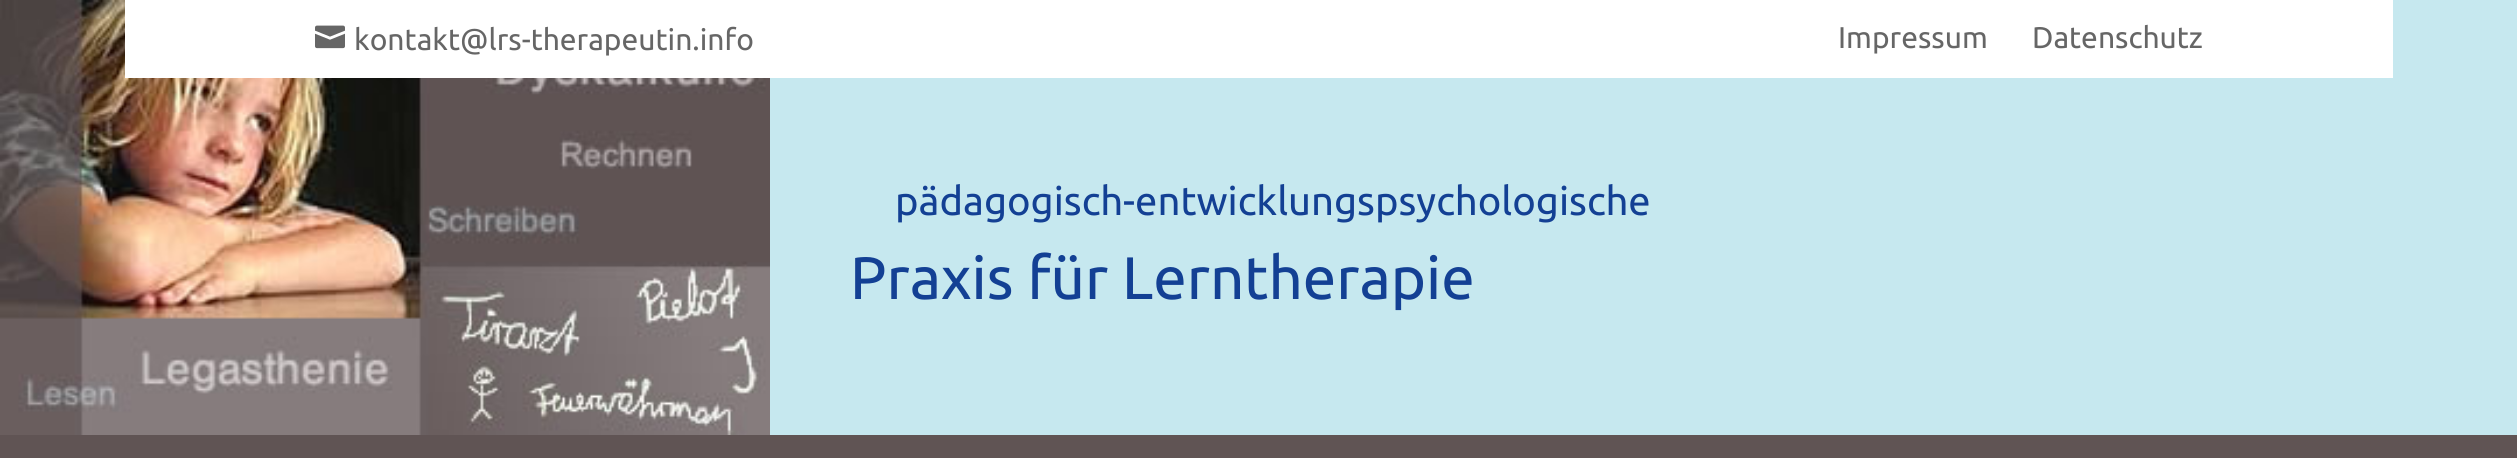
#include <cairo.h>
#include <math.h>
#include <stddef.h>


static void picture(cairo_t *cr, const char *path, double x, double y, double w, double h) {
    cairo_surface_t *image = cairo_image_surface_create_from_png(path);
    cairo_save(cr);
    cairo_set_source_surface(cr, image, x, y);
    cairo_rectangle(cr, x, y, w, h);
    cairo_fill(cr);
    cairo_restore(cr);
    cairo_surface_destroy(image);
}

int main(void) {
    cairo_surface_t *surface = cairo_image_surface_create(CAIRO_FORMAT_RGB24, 2517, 458);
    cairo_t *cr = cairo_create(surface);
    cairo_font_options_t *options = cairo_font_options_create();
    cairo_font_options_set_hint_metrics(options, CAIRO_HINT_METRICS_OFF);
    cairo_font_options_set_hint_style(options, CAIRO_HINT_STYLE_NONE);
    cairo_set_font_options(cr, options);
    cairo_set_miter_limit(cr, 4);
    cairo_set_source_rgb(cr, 0.776, 0.91, 0.937);
    cairo_paint(cr);
    picture(cr, "img2.png", 0, 0, 770, 435);
    cairo_set_source_rgb(cr, 1, 1, 1);
    cairo_rectangle(cr, 125, 0, 2268, 78);
    cairo_fill(cr);
    picture(cr, "img1.png", 315, 25, 30, 24);
    cairo_select_font_face(cr, "Ubuntu", CAIRO_FONT_SLANT_NORMAL, CAIRO_FONT_WEIGHT_NORMAL);
    cairo_set_font_size(cr, 30);
    cairo_set_source_rgb(cr, 0.4, 0.4, 0.4);
    cairo_move_to(cr, 354, 50);
    cairo_show_text(cr, "kontakt@lrs-therapeutin.info");
    cairo_move_to(cr, 1838, 48);
    cairo_show_text(cr, "Impressum");
    cairo_move_to(cr, 2032, 48);
    cairo_show_text(cr, "Datenschutz");
    cairo_set_font_size(cr, 40);
    cairo_set_source_rgb(cr, 0.078, 0.251, 0.58);
    cairo_move_to(cr, 895, 215);
    cairo_show_text(cr, "pädagogisch-entwicklungspsychologische");
    cairo_set_font_size(cr, 60);
    cairo_move_to(cr, 850, 299);
    cairo_show_text(cr, "Praxis für Lerntherapie");
    cairo_set_source_rgb(cr, 0.376, 0.329, 0.329);
    cairo_rectangle(cr, 0, 435, 2517, 23);
    cairo_fill(cr);
    cairo_surface_write_to_png(surface, "page.png");
    cairo_font_options_destroy(options);
    cairo_destroy(cr);
    cairo_surface_destroy(surface);
    return 0;
}
